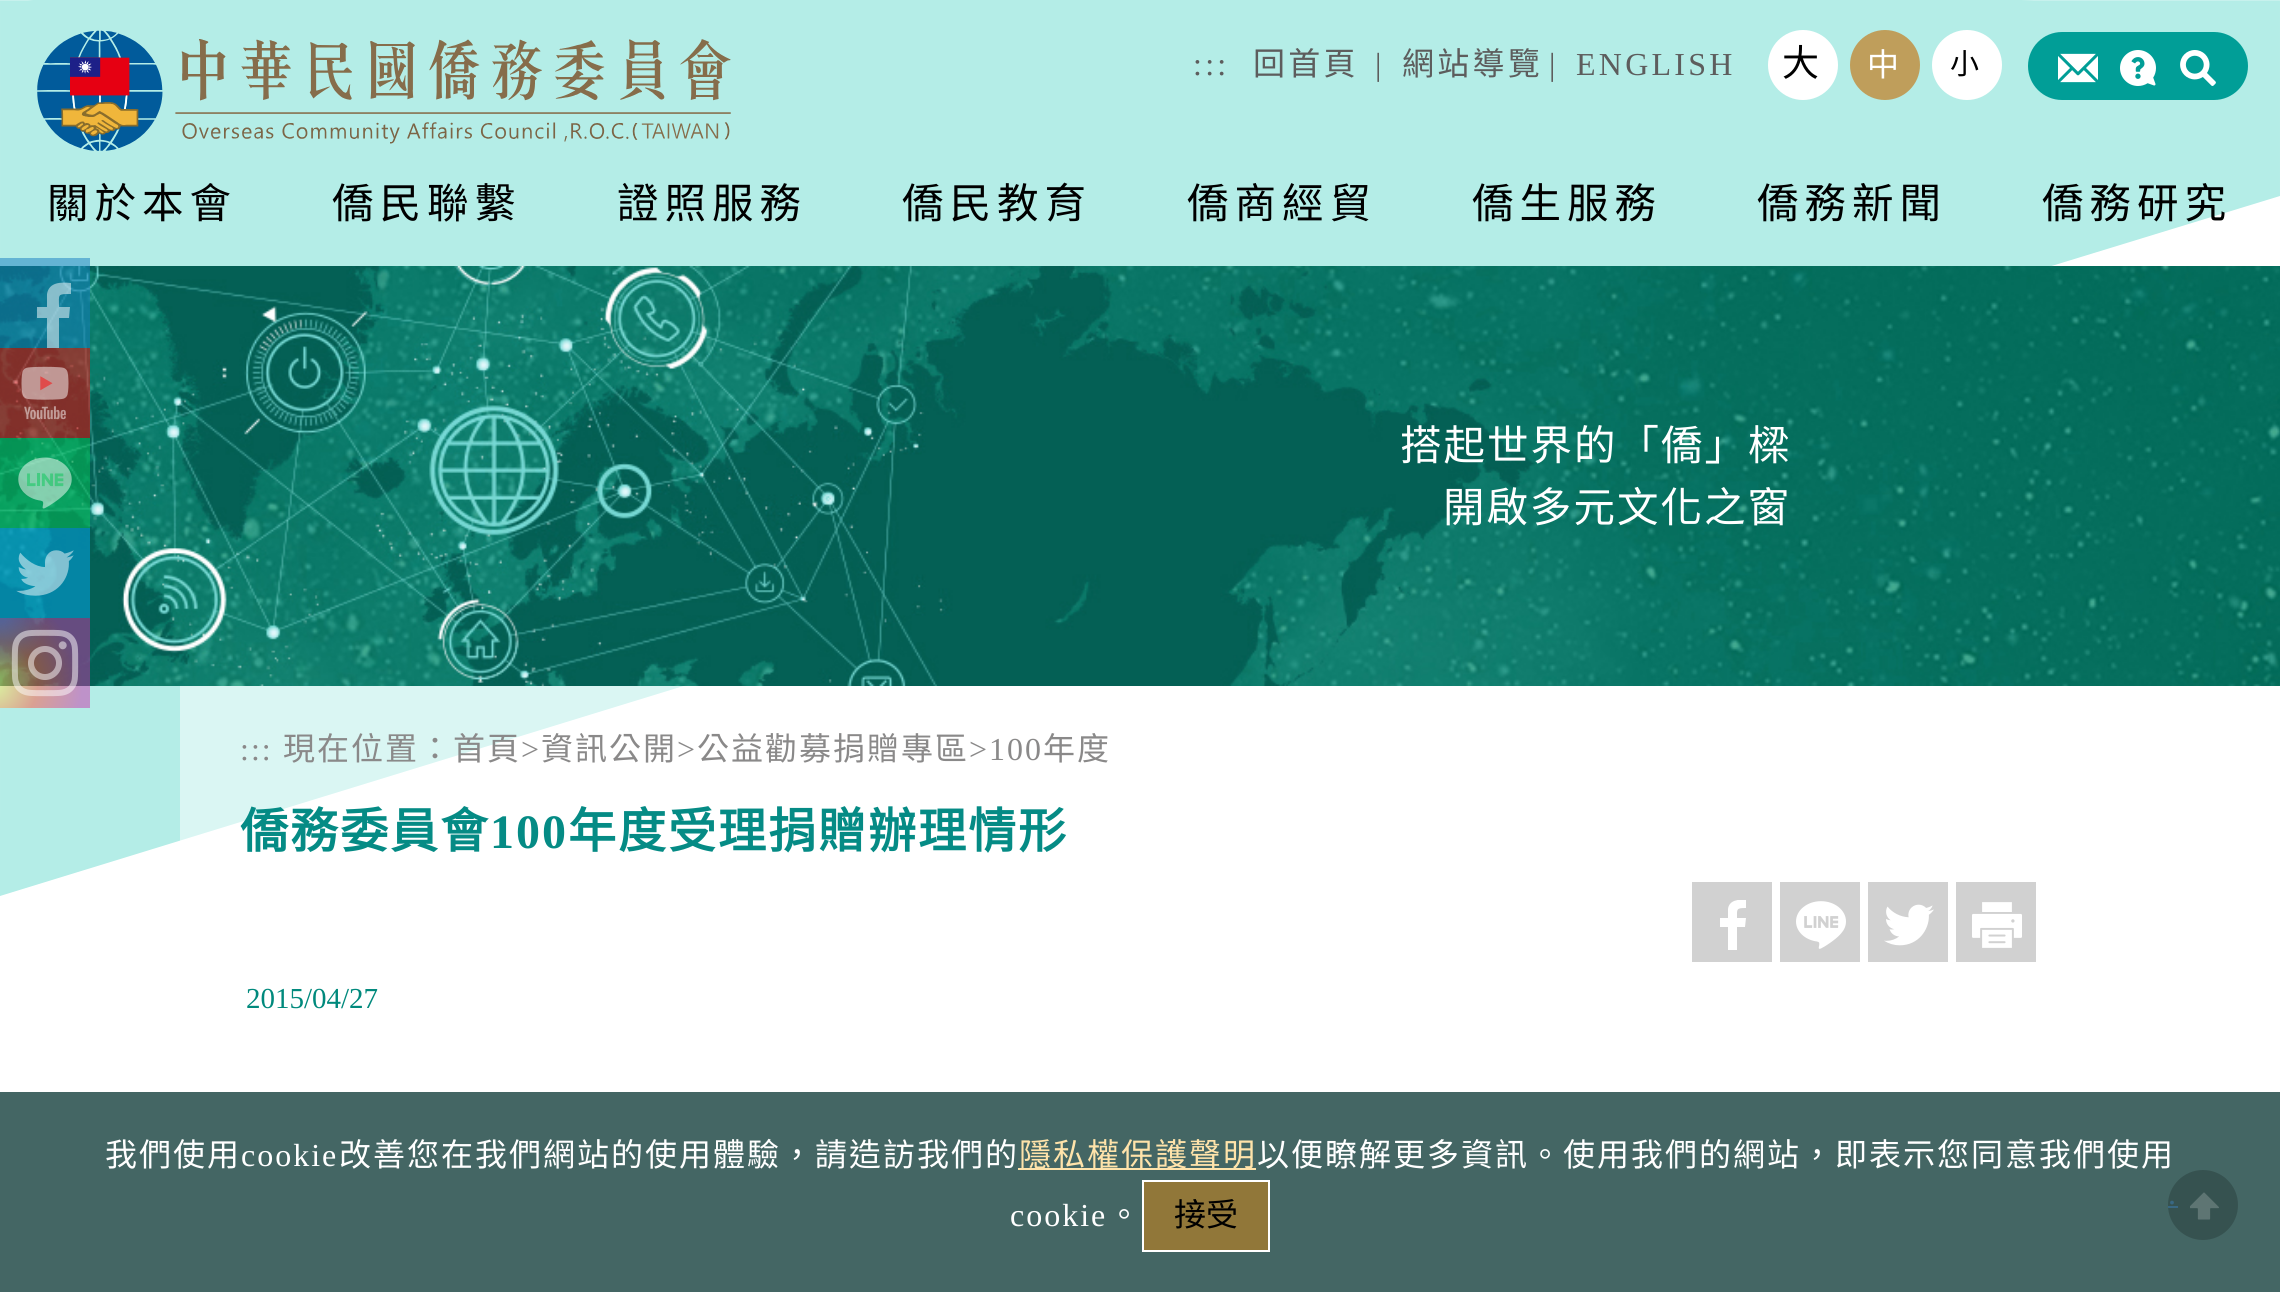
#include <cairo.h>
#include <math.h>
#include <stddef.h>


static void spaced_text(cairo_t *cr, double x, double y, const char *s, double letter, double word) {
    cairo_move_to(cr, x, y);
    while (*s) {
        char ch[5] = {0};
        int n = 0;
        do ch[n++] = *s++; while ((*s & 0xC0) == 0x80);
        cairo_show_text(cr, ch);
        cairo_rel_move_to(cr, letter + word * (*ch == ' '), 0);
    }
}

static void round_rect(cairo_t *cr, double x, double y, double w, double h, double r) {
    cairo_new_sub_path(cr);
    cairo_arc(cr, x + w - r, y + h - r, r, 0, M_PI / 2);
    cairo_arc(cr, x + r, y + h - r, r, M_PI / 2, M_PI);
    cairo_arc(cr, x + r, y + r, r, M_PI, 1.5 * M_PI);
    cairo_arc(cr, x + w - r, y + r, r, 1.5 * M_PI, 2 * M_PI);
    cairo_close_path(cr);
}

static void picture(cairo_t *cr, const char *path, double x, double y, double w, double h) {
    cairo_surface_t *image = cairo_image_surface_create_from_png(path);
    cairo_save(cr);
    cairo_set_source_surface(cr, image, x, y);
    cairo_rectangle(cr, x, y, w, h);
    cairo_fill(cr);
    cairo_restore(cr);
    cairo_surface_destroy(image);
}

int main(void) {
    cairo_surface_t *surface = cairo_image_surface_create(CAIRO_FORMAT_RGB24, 2280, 1292);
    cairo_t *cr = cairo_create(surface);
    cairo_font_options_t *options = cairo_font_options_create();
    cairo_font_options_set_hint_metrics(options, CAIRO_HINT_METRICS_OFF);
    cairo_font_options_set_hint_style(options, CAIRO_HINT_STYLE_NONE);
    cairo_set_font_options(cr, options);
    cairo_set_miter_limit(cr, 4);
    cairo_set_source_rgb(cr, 1, 1, 1);
    cairo_paint(cr);
    picture(cr, "img1.png", 0, 0, 2280, 896);
    picture(cr, "img2.png", 37, 30, 694, 121);
    cairo_select_font_face(cr, "Liberation Serif", CAIRO_FONT_SLANT_NORMAL, CAIRO_FONT_WEIGHT_NORMAL);
    cairo_set_font_size(cr, 32);
    cairo_set_source_rgb(cr, 0.365, 0.365, 0.365);
    spaced_text(cr, 1193, 75, ":::", 3.25, 0);
    cairo_select_font_face(cr, "Noto Sans CJK TC", CAIRO_FONT_SLANT_NORMAL, CAIRO_FONT_WEIGHT_NORMAL);
    spaced_text(cr, 1253, 75, "回首頁", 3.25, 0);
    cairo_select_font_face(cr, "Liberation Serif", CAIRO_FONT_SLANT_NORMAL, CAIRO_FONT_WEIGHT_NORMAL);
    spaced_text(cr, 1375, 75, "|", 3.25, 0);
    cairo_select_font_face(cr, "Noto Sans CJK TC", CAIRO_FONT_SLANT_NORMAL, CAIRO_FONT_WEIGHT_NORMAL);
    spaced_text(cr, 1402, 75, "網站導覽", 3.25, 0);
    cairo_select_font_face(cr, "Liberation Serif", CAIRO_FONT_SLANT_NORMAL, CAIRO_FONT_WEIGHT_NORMAL);
    spaced_text(cr, 1549, 75, "|", 3.25, 0);
    spaced_text(cr, 1576, 75, "ENGLISH", 3.25, 0);
    cairo_set_source_rgb(cr, 1, 1, 1);
    cairo_new_path(cr);
    cairo_arc(cr, 1803, 65, 35, 0, 2 * M_PI);
    cairo_fill(cr);
    cairo_select_font_face(cr, "Noto Sans CJK TC", CAIRO_FONT_SLANT_NORMAL, CAIRO_FONT_WEIGHT_NORMAL);
    cairo_set_font_size(cr, 37);
    cairo_set_source_rgb(cr, 0, 0, 0);
    spaced_text(cr, 1782, 76, "大", 3.25, 0);
    cairo_set_source_rgb(cr, 0.749, 0.62, 0.357);
    cairo_new_path(cr);
    cairo_arc(cr, 1885, 65, 35, 0, 2 * M_PI);
    cairo_fill(cr);
    cairo_set_font_size(cr, 32);
    cairo_set_source_rgb(cr, 1, 1, 1);
    spaced_text(cr, 1867, 76, "中", 3.25, 0);
    cairo_new_path(cr);
    cairo_arc(cr, 1967, 65, 35, 0, 2 * M_PI);
    cairo_fill(cr);
    cairo_set_font_size(cr, 29);
    cairo_set_source_rgb(cr, 0, 0, 0);
    spaced_text(cr, 1950, 74, "小", 3.25, 0);
    cairo_set_source_rgb(cr, 0.004, 0.62, 0.592);
    round_rect(cr, 2028, 32, 220, 68, 34);
    cairo_fill(cr);
    picture(cr, "img3.png", 2058, 53, 40, 30);
    picture(cr, "img4.png", 2120, 50, 36, 36);
    picture(cr, "img5.png", 2180, 50, 36, 36);
    cairo_set_font_size(cr, 41.5);
    cairo_set_source_rgb(cr, 0, 0, 0);
    spaced_text(cr, 47, 218, "關於本會", 6, 0);
    spaced_text(cr, 332, 218, "僑民聯繫", 6, 0);
    spaced_text(cr, 617, 218, "證照服務", 6, 0);
    spaced_text(cr, 902, 218, "僑民教育", 6, 0);
    spaced_text(cr, 1187, 218, "僑商經貿", 6, 0);
    spaced_text(cr, 1472, 218, "僑生服務", 6, 0);
    spaced_text(cr, 1757, 218, "僑務新聞", 6, 0);
    spaced_text(cr, 2042, 218, "僑務研究", 6, 0);
    picture(cr, "img10.png", 0, 266, 2280, 420);
    cairo_set_source_rgba(cr, 0.082, 0.49, 0.765, 0.5);
    cairo_rectangle(cr, 0, 258, 90, 90);
    cairo_fill(cr);
    cairo_set_source_rgba(cr, 1, 1, 1, 0.5);
    cairo_new_path(cr);
    cairo_move_to(cr, 59, 348);
    cairo_line_to(cr, 59, 318);
    cairo_line_to(cr, 69, 318);
    cairo_line_to(cr, 70, 307);
    cairo_line_to(cr, 59, 307);
    cairo_curve_to(cr, 59, 294, 57, 294, 71, 294);
    cairo_line_to(cr, 71, 283);
    cairo_curve_to(cr, 61, 282, 49, 282, 47, 294);
    cairo_line_to(cr, 47, 307);
    cairo_line_to(cr, 37, 307);
    cairo_line_to(cr, 37, 318);
    cairo_line_to(cr, 47, 318);
    cairo_line_to(cr, 47, 348);
    cairo_close_path(cr);
    cairo_fill(cr);
    picture(cr, "img6.png", 0, 348, 90, 90);
    picture(cr, "img7.png", 0, 438, 90, 90);
    picture(cr, "img8.png", 0, 528, 90, 90);
    picture(cr, "img9.png", 0, 618, 90, 90);
    cairo_set_source_rgb(cr, 1, 1, 1);
    spaced_text(cr, 1400, 460, "搭起世界的「僑」樑", 2, 0);
    spaced_text(cr, 1443, 522, "開啟多元文化之窗", 2, 0);
    cairo_set_source_rgba(cr, 1, 1, 1, 0.5);
    cairo_rectangle(cr, 180, 686, 503, 155);
    cairo_fill(cr);
    cairo_select_font_face(cr, "Liberation Serif", CAIRO_FONT_SLANT_NORMAL, CAIRO_FONT_WEIGHT_NORMAL);
    cairo_set_font_size(cr, 32);
    cairo_set_source_rgb(cr, 0.541, 0.537, 0.537);
    spaced_text(cr, 240, 760, ":::", 2, 0);
    cairo_select_font_face(cr, "Noto Sans CJK TC", CAIRO_FONT_SLANT_NORMAL, CAIRO_FONT_WEIGHT_NORMAL);
    spaced_text(cr, 283, 760, "現在位置：首頁", 2, 0);
    cairo_select_font_face(cr, "Liberation Serif", CAIRO_FONT_SLANT_NORMAL, CAIRO_FONT_WEIGHT_NORMAL);
    spaced_text(cr, 521, 760, ">", 2, 0);
    cairo_select_font_face(cr, "Noto Sans CJK TC", CAIRO_FONT_SLANT_NORMAL, CAIRO_FONT_WEIGHT_NORMAL);
    spaced_text(cr, 541, 760, "資訊公開", 2, 0);
    cairo_select_font_face(cr, "Liberation Serif", CAIRO_FONT_SLANT_NORMAL, CAIRO_FONT_WEIGHT_NORMAL);
    spaced_text(cr, 677, 760, ">", 2, 0);
    cairo_select_font_face(cr, "Noto Sans CJK TC", CAIRO_FONT_SLANT_NORMAL, CAIRO_FONT_WEIGHT_NORMAL);
    spaced_text(cr, 697, 760, "公益勸募捐贈專區", 2, 0);
    cairo_select_font_face(cr, "Liberation Serif", CAIRO_FONT_SLANT_NORMAL, CAIRO_FONT_WEIGHT_NORMAL);
    spaced_text(cr, 969, 760, ">100", 2, 0);
    cairo_select_font_face(cr, "Noto Sans CJK TC", CAIRO_FONT_SLANT_NORMAL, CAIRO_FONT_WEIGHT_NORMAL);
    spaced_text(cr, 1043, 760, "年度", 2, 0);
    cairo_select_font_face(cr, "Noto Sans CJK TC", CAIRO_FONT_SLANT_NORMAL, CAIRO_FONT_WEIGHT_BOLD);
    cairo_set_font_size(cr, 48);
    cairo_set_source_rgb(cr, 0.02, 0.545, 0.522);
    spaced_text(cr, 240, 848, "僑務委員會", 2, 0);
    cairo_select_font_face(cr, "Liberation Serif", CAIRO_FONT_SLANT_NORMAL, CAIRO_FONT_WEIGHT_BOLD);
    spaced_text(cr, 490, 848, "100", 2, 0);
    cairo_select_font_face(cr, "Noto Sans CJK TC", CAIRO_FONT_SLANT_NORMAL, CAIRO_FONT_WEIGHT_BOLD);
    spaced_text(cr, 568, 848, "年度受理捐贈辦理情形", 2, 0);
    cairo_set_source_rgb(cr, 0.82, 0.82, 0.82);
    cairo_rectangle(cr, 1692, 882, 80, 80);
    cairo_fill(cr);
    cairo_save(cr);
    cairo_rectangle(cr, 1708, 900, 50, 50);
    cairo_clip(cr);
    cairo_set_source_rgb(cr, 1, 1, 1);
    cairo_new_path(cr);
    cairo_move_to(cr, 1737, 950);
    cairo_line_to(cr, 1737, 927);
    cairo_line_to(cr, 1745, 927);
    cairo_line_to(cr, 1746, 918);
    cairo_line_to(cr, 1737, 918);
    cairo_curve_to(cr, 1737, 909, 1736, 908, 1746, 908);
    cairo_line_to(cr, 1746, 900);
    cairo_curve_to(cr, 1739, 899, 1729, 900, 1728, 909);
    cairo_line_to(cr, 1728, 918);
    cairo_line_to(cr, 1720, 918);
    cairo_line_to(cr, 1720, 927);
    cairo_line_to(cr, 1728, 927);
    cairo_line_to(cr, 1728, 950);
    cairo_close_path(cr);
    cairo_fill(cr);
    cairo_restore(cr);
    cairo_rectangle(cr, 1780, 882, 80, 80);
    cairo_fill(cr);
    picture(cr, "img11.png", 1796, 901, 50, 48);
    cairo_rectangle(cr, 1868, 882, 80, 80);
    cairo_fill(cr);
    picture(cr, "img12.png", 1884, 904, 50, 42);
    cairo_rectangle(cr, 1956, 882, 80, 80);
    cairo_fill(cr);
    picture(cr, "img13.png", 1972, 902, 50, 46);
    cairo_select_font_face(cr, "Liberation Serif", CAIRO_FONT_SLANT_NORMAL, CAIRO_FONT_WEIGHT_NORMAL);
    cairo_set_font_size(cr, 29);
    cairo_set_source_rgb(cr, 0, 0.537, 0.486);
    cairo_move_to(cr, 246, 1008);
    cairo_show_text(cr, "2015/04/27");
    cairo_set_source_rgb(cr, 0.267, 0.4, 0.392);
    cairo_rectangle(cr, 0, 1092, 2280, 200);
    cairo_fill(cr);
    cairo_select_font_face(cr, "Noto Sans CJK TC", CAIRO_FONT_SLANT_NORMAL, CAIRO_FONT_WEIGHT_NORMAL);
    cairo_set_font_size(cr, 32);
    cairo_set_source_rgb(cr, 1, 1, 1);
    spaced_text(cr, 105, 1166, "我們使用", 2, 0);
    cairo_select_font_face(cr, "Liberation Serif", CAIRO_FONT_SLANT_NORMAL, CAIRO_FONT_WEIGHT_NORMAL);
    spaced_text(cr, 241, 1166, "cookie", 2, 0);
    cairo_select_font_face(cr, "Noto Sans CJK TC", CAIRO_FONT_SLANT_NORMAL, CAIRO_FONT_WEIGHT_NORMAL);
    spaced_text(cr, 339, 1166, "改善您在我們網站的使用體驗，請造訪我們的", 2, 0);
    cairo_set_source_rgb(cr, 1, 0.89, 0.667);
    cairo_rectangle(cr, 1018, 1168, 238, 2);
    cairo_fill(cr);
    spaced_text(cr, 1019, 1166, "隱私權保護聲明", 2, 0);
    cairo_set_source_rgb(cr, 1, 1, 1);
    spaced_text(cr, 1257, 1166, "以便瞭解更多資訊。使用我們的網站，即表示您同意我們使用", 2, 0);
    cairo_select_font_face(cr, "Liberation Serif", CAIRO_FONT_SLANT_NORMAL, CAIRO_FONT_WEIGHT_NORMAL);
    spaced_text(cr, 1010, 1226, "cookie", 2, 0);
    cairo_select_font_face(cr, "Noto Sans CJK TC", CAIRO_FONT_SLANT_NORMAL, CAIRO_FONT_WEIGHT_NORMAL);
    spaced_text(cr, 1108, 1226, "。", 2, 0);
    cairo_set_source_rgb(cr, 0.569, 0.467, 0.224);
    cairo_rectangle(cr, 1143, 1181, 126, 70);
    cairo_fill_preserve(cr);
    cairo_set_source_rgb(cr, 1, 1, 1);
    cairo_stroke(cr);
    cairo_set_source_rgb(cr, 0, 0, 0);
    cairo_move_to(cr, 1174, 1226);
    cairo_show_text(cr, "接受");
    cairo_set_source_rgb(cr, 0.212, 0.322, 0.314);
    cairo_new_path(cr);
    cairo_arc(cr, 2203, 1205, 35, 0, 2 * M_PI);
    cairo_fill(cr);
    cairo_select_font_face(cr, "Liberation Serif", CAIRO_FONT_SLANT_NORMAL, CAIRO_FONT_WEIGHT_NORMAL);
    cairo_set_source_rgb(cr, 0.224, 0.408, 0.514);
    spaced_text(cr, 2168, 1204, ".", 2, 0);
    cairo_rectangle(cr, 2168, 1206, 10, 2);
    cairo_fill(cr);
    picture(cr, "img14.png", 2190, 1192, 29, 28);
    cairo_surface_write_to_png(surface, "page.png");
    cairo_font_options_destroy(options);
    cairo_destroy(cr);
    cairo_surface_destroy(surface);
    return 0;
}
